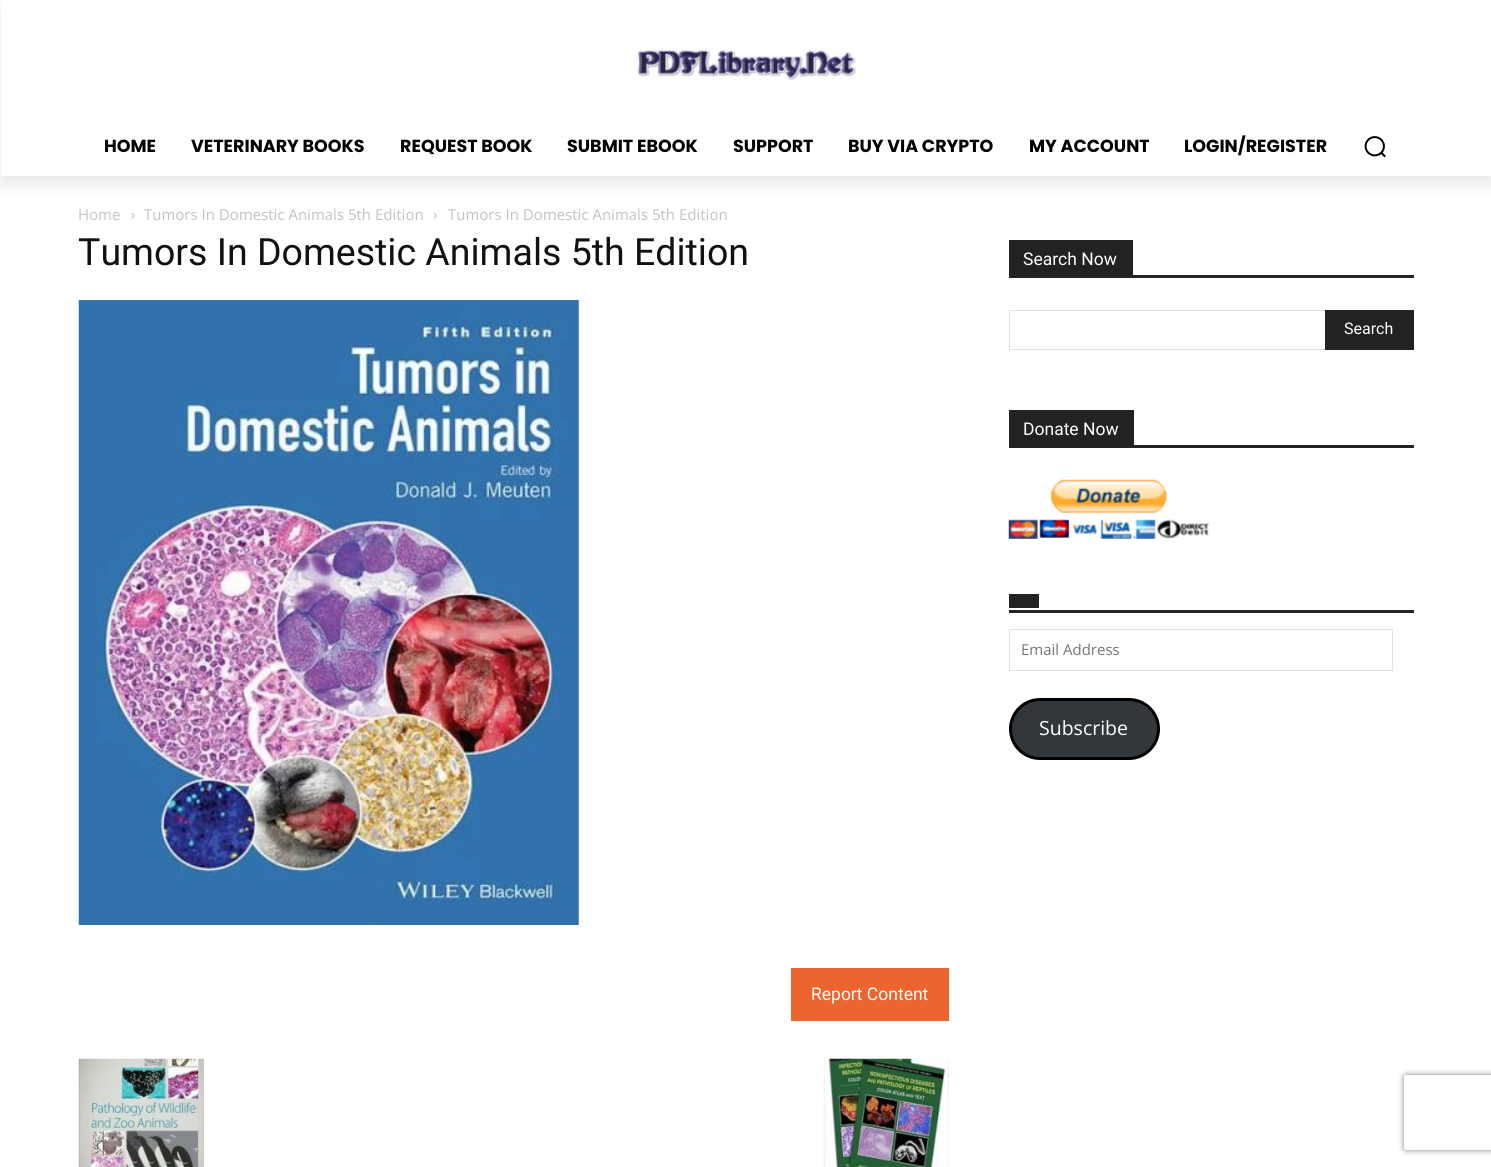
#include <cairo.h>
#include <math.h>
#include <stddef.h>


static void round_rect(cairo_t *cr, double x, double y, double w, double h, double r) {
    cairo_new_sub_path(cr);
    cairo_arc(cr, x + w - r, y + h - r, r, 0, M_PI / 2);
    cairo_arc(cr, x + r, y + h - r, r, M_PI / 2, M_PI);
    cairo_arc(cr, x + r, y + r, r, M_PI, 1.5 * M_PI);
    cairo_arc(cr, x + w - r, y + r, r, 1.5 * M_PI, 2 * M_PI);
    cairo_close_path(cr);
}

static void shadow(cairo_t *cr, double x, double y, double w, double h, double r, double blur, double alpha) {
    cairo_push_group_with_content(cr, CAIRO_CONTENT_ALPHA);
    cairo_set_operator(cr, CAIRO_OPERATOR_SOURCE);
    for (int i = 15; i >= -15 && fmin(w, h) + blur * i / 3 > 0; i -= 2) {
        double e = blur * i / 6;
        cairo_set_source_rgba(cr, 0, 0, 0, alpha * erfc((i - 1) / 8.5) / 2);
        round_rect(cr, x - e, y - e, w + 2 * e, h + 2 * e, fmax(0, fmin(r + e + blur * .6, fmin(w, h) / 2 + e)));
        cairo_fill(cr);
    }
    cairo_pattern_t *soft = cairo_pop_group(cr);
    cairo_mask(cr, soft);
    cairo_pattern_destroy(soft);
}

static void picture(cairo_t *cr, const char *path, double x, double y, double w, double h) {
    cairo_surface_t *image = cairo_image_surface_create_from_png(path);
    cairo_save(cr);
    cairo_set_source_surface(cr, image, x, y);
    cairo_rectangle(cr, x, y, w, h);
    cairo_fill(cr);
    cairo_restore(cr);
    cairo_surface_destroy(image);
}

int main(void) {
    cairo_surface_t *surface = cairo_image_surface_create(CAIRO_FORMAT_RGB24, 1491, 1167);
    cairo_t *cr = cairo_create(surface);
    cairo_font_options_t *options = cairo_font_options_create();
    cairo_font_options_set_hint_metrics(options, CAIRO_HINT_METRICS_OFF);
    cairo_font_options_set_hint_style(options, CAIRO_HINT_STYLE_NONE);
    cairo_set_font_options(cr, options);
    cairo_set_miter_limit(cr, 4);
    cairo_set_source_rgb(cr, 1, 1, 1);
    cairo_paint(cr);
    picture(cr, "img1.png", 637, 49, 219, 32);
    cairo_save(cr);
    cairo_set_fill_rule(cr, CAIRO_FILL_RULE_EVEN_ODD);
    cairo_new_path(cr);
    cairo_move_to(cr, 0, 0);
    cairo_line_to(cr, 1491, 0);
    cairo_line_to(cr, 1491, 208);
    cairo_line_to(cr, 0, 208);
    cairo_close_path(cr);
    cairo_move_to(cr, 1, 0);
    cairo_line_to(cr, 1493, 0);
    cairo_line_to(cr, 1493, 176);
    cairo_line_to(cr, 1, 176);
    cairo_close_path(cr);
    cairo_clip(cr);
    cairo_set_source_rgb(cr, 0, 0, 0);
    shadow(cr, 1, 8, 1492, 176, 0, 7.5, 0.1);
    cairo_restore(cr);
    cairo_select_font_face(cr, "Poppins", CAIRO_FONT_SLANT_NORMAL, CAIRO_FONT_WEIGHT_BOLD);
    cairo_set_font_size(cr, 17.5);
    cairo_set_source_rgb(cr, 0, 0, 0);
    cairo_move_to(cr, 104, 152);
    cairo_show_text(cr, "HOME");
    cairo_move_to(cr, 191, 152);
    cairo_show_text(cr, "VETERINARY BOOKS");
    cairo_move_to(cr, 400, 152);
    cairo_show_text(cr, "REQUEST BOOK");
    cairo_move_to(cr, 567, 152);
    cairo_show_text(cr, "SUBMIT EBOOK");
    cairo_move_to(cr, 733, 152);
    cairo_show_text(cr, "SUPPORT");
    cairo_move_to(cr, 848, 152);
    cairo_show_text(cr, "BUY VIA CRYPTO");
    cairo_move_to(cr, 1029, 152);
    cairo_show_text(cr, "MY ACCOUNT");
    cairo_move_to(cr, 1184, 152);
    cairo_show_text(cr, "LOGIN/REGISTER");
    picture(cr, "img2.png", 1364, 136, 22, 22);
    cairo_select_font_face(cr, "Open Sans", CAIRO_FONT_SLANT_NORMAL, CAIRO_FONT_WEIGHT_NORMAL);
    cairo_set_font_size(cr, 15);
    cairo_set_source_rgb(cr, 0.765, 0.765, 0.765);
    cairo_move_to(cr, 78, 220);
    cairo_show_text(cr, "Home");
    picture(cr, "img3.png", 131, 212, 4, 7);
    cairo_move_to(cr, 144, 220);
    cairo_show_text(cr, "Tumors In Domestic Animals 5th Edition");
    picture(cr, "img4.png", 433, 212, 4, 7);
    cairo_move_to(cr, 448, 220);
    cairo_show_text(cr, "Tumors In Domestic Animals 5th Edition");
    cairo_select_font_face(cr, "Roboto", CAIRO_FONT_SLANT_NORMAL, CAIRO_FONT_WEIGHT_NORMAL);
    cairo_set_font_size(cr, 37.5);
    cairo_set_source_rgb(cr, 0.067, 0.067, 0.067);
    cairo_move_to(cr, 78, 265);
    cairo_show_text(cr, "Tumors In Domestic Animals 5th Edition");
    picture(cr, "img5.png", 78, 300, 501, 625);
    cairo_set_source_rgb(cr, 0.922, 0.396, 0.18);
    cairo_rectangle(cr, 791, 968, 158, 53);
    cairo_fill(cr);
    cairo_set_font_size(cr, 17.5);
    cairo_set_source_rgb(cr, 1, 1, 1);
    cairo_move_to(cr, 811, 1000);
    cairo_show_text(cr, "Report Content");
    picture(cr, "img6.png", 78, 1058, 126, 109);
    picture(cr, "img7.png", 823, 1058, 126, 109);
    cairo_set_source_rgb(cr, 0.133, 0.133, 0.133);
    cairo_rectangle(cr, 1009, 275, 405, 3);
    cairo_fill(cr);
    cairo_rectangle(cr, 1009, 240, 124, 35);
    cairo_fill(cr);
    cairo_set_source_rgb(cr, 1, 1, 1);
    cairo_move_to(cr, 1023, 265);
    cairo_show_text(cr, "Search Now");
    cairo_set_source_rgb(cr, 0.882, 0.882, 0.882);
    cairo_rectangle(cr, 1009, 310, 316, 1);
    cairo_fill(cr);
    cairo_rectangle(cr, 1009, 349, 316, 1);
    cairo_fill(cr);
    cairo_rectangle(cr, 1009, 310, 1, 40);
    cairo_fill(cr);
    cairo_set_source_rgb(cr, 0.133, 0.133, 0.133);
    cairo_rectangle(cr, 1325, 310, 89, 40);
    cairo_fill(cr);
    cairo_set_font_size(cr, 16);
    cairo_set_source_rgb(cr, 1, 1, 1);
    cairo_move_to(cr, 1344, 334);
    cairo_show_text(cr, "Search");
    cairo_set_source_rgb(cr, 0.133, 0.133, 0.133);
    cairo_rectangle(cr, 1009, 445, 405, 3);
    cairo_fill(cr);
    cairo_rectangle(cr, 1009, 410, 125, 35);
    cairo_fill(cr);
    cairo_set_font_size(cr, 17.5);
    cairo_set_source_rgb(cr, 1, 1, 1);
    cairo_move_to(cr, 1023, 435);
    cairo_show_text(cr, "Donate Now");
    picture(cr, "img8.png", 1008, 479, 201, 60);
    cairo_set_source_rgb(cr, 0.133, 0.133, 0.133);
    cairo_rectangle(cr, 1009, 610, 405, 3);
    cairo_fill(cr);
    cairo_rectangle(cr, 1009, 594, 30, 14);
    cairo_fill(cr);
    cairo_rectangle(cr, 1009.5, 629.5, 383, 41);
    cairo_set_source_rgb(cr, 0.882, 0.882, 0.882);
    cairo_set_line_width(cr, 1);
    cairo_stroke(cr);
    cairo_select_font_face(cr, "Open Sans", CAIRO_FONT_SLANT_NORMAL, CAIRO_FONT_WEIGHT_NORMAL);
    cairo_set_font_size(cr, 15);
    cairo_set_source_rgb(cr, 0.459, 0.459, 0.459);
    cairo_move_to(cr, 1021, 655);
    cairo_show_text(cr, "Email Address");
    cairo_set_source_rgb(cr, 0.196, 0.216, 0.235);
    round_rect(cr, 1010.5, 699.5, 148, 59, 29.5);
    cairo_fill_preserve(cr);
    cairo_set_source_rgb(cr, 0, 0, 0);
    cairo_set_line_width(cr, 3);
    cairo_stroke(cr);
    cairo_set_font_size(cr, 19.5);
    cairo_set_source_rgb(cr, 1, 1, 1);
    cairo_move_to(cr, 1039, 735);
    cairo_show_text(cr, "Subscribe");
    cairo_save(cr);
    cairo_set_fill_rule(cr, CAIRO_FILL_RULE_EVEN_ODD);
    cairo_new_path(cr);
    cairo_move_to(cr, 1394, 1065);
    cairo_line_to(cr, 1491, 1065);
    cairo_line_to(cr, 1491, 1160);
    cairo_line_to(cr, 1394, 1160);
    cairo_close_path(cr);
    cairo_move_to(cr, 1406.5, 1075);
    cairo_line_to(cr, 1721.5, 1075);
    cairo_curve_to(cr, 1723, 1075, 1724, 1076, 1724, 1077.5);
    cairo_line_to(cr, 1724, 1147.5);
    cairo_curve_to(cr, 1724, 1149, 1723, 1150, 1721.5, 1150);
    cairo_line_to(cr, 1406.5, 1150);
    cairo_curve_to(cr, 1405, 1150, 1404, 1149, 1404, 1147.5);
    cairo_line_to(cr, 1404, 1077.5);
    cairo_curve_to(cr, 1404, 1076, 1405, 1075, 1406.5, 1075);
    cairo_close_path(cr);
    cairo_clip(cr);
    cairo_set_source_rgb(cr, 0.502, 0.502, 0.502);
    shadow(cr, 1404, 1075, 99, 75, 2.5, 3, 1);
    cairo_restore(cr);
    cairo_surface_write_to_png(surface, "page.png");
    cairo_font_options_destroy(options);
    cairo_destroy(cr);
    cairo_surface_destroy(surface);
    return 0;
}
